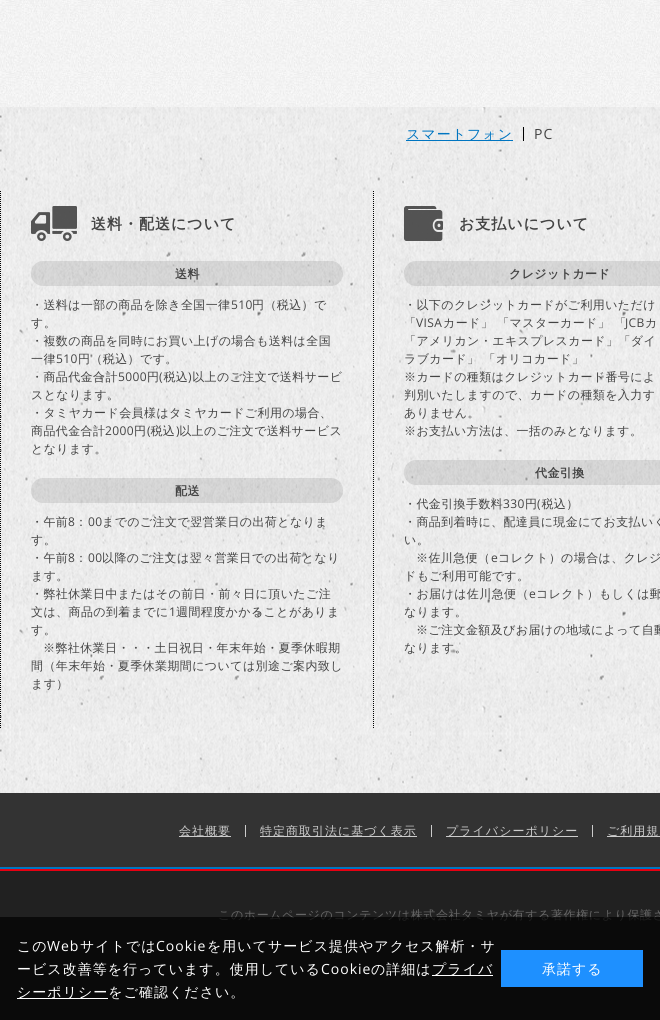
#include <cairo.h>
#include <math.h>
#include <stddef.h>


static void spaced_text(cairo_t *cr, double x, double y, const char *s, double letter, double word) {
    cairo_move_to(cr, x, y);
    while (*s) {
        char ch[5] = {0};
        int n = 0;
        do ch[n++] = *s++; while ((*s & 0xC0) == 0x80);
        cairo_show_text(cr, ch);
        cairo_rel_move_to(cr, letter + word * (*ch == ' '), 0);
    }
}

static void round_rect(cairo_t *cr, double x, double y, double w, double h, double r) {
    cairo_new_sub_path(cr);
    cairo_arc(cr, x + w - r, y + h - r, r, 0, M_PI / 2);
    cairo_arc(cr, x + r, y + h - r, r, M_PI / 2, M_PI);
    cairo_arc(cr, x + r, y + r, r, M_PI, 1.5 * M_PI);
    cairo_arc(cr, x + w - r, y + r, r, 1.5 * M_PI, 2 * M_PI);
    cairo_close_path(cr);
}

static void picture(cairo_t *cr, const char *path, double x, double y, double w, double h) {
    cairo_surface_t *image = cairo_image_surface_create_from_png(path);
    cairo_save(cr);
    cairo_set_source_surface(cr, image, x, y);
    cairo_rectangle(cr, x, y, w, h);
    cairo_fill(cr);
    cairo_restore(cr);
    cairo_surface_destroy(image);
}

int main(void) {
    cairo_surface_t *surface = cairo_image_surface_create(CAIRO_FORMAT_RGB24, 660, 1020);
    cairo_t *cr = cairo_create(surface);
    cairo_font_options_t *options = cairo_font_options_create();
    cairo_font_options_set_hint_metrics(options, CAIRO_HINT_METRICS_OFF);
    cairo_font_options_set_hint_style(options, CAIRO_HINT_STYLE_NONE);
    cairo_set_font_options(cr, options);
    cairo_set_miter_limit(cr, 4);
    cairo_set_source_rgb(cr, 1, 1, 1);
    cairo_paint(cr);
    picture(cr, "img1.png", 0, 0, 660, 107);
    picture(cr, "img2.png", 0, 107, 660, 686);
    cairo_set_source_rgb(cr, 0, 0.459, 0.757);
    cairo_rectangle(cr, 406, 140, 107, 1);
    cairo_fill(cr);
    cairo_select_font_face(cr, "WenQuanYi Zen Hei Medium", CAIRO_FONT_SLANT_NORMAL, CAIRO_FONT_WEIGHT_NORMAL);
    cairo_set_font_size(cr, 14);
    spaced_text(cr, 406, 139, "スマートフォン", 1, 0);
    cairo_set_source_rgb(cr, 0, 0, 0);
    cairo_rectangle(cr, 523, 127, 1, 14);
    cairo_fill(cr);
    cairo_select_font_face(cr, "Open Sans", CAIRO_FONT_SLANT_NORMAL, CAIRO_FONT_WEIGHT_NORMAL);
    cairo_set_source_rgb(cr, 0.267, 0.267, 0.267);
    spaced_text(cr, 534, 139, "PC", 1, 0);
    cairo_new_path(cr);
    cairo_move_to(cr, 0.5, 191);
    cairo_line_to(cr, 0.5, 728);
    cairo_set_source_rgb(cr, 0, 0, 0);
    cairo_set_line_width(cr, 1);
    cairo_set_dash(cr, (double[]){1, 1}, 2, 0);
    cairo_stroke(cr);
    cairo_new_path(cr);
    cairo_move_to(cr, 373.5, 191);
    cairo_line_to(cr, 373.5, 728);
    cairo_stroke(cr);
    picture(cr, "img3.png", 31, 206, 46, 35);
    cairo_select_font_face(cr, "WenQuanYi Zen Hei", CAIRO_FONT_SLANT_NORMAL, CAIRO_FONT_WEIGHT_BOLD);
    cairo_set_font_size(cr, 15);
    cairo_set_source_rgb(cr, 0.267, 0.267, 0.267);
    spaced_text(cr, 91, 229, "送料・配送について", 1, 0);
    cairo_set_source_rgba(cr, 0, 0, 0, 0.1);
    round_rect(cr, 31, 261, 312, 25, 12);
    cairo_fill(cr);
    cairo_set_font_size(cr, 12);
    cairo_set_source_rgb(cr, 0.267, 0.267, 0.267);
    spaced_text(cr, 175, 278, "送料", 0.4, 0);
    cairo_select_font_face(cr, "WenQuanYi Zen Hei Medium", CAIRO_FONT_SLANT_NORMAL, CAIRO_FONT_WEIGHT_NORMAL);
    spaced_text(cr, 31, 309, "・送料は一部の商品を除き全国一律", 0.4, 0);
    cairo_select_font_face(cr, "Open Sans", CAIRO_FONT_SLANT_NORMAL, CAIRO_FONT_WEIGHT_NORMAL);
    spaced_text(cr, 231, 309, "510", 0.4, 0);
    cairo_select_font_face(cr, "WenQuanYi Zen Hei Medium", CAIRO_FONT_SLANT_NORMAL, CAIRO_FONT_WEIGHT_NORMAL);
    spaced_text(cr, 252, 309, "円（税込）で", 0.4, 0);
    spaced_text(cr, 31, 327, "す。", 0.4, 0);
    spaced_text(cr, 31, 345, "・複数の商品を同時にお買い上げの場合も送料は全国", 0.4, 0);
    spaced_text(cr, 31, 363, "一律", 0.4, 0);
    cairo_select_font_face(cr, "Open Sans", CAIRO_FONT_SLANT_NORMAL, CAIRO_FONT_WEIGHT_NORMAL);
    spaced_text(cr, 56, 363, "510", 0.4, 0);
    cairo_select_font_face(cr, "WenQuanYi Zen Hei Medium", CAIRO_FONT_SLANT_NORMAL, CAIRO_FONT_WEIGHT_NORMAL);
    spaced_text(cr, 78, 363, "円（税込）です。", 0.4, 0);
    spaced_text(cr, 31, 381, "・商品代金合計", 0.4, 0);
    cairo_select_font_face(cr, "Open Sans", CAIRO_FONT_SLANT_NORMAL, CAIRO_FONT_WEIGHT_NORMAL);
    spaced_text(cr, 118, 381, "5000", 0.4, 0);
    cairo_select_font_face(cr, "WenQuanYi Zen Hei Medium", CAIRO_FONT_SLANT_NORMAL, CAIRO_FONT_WEIGHT_NORMAL);
    spaced_text(cr, 147, 381, "円 税込 以上のご注文で送料サービ", 0.4, 0);
    cairo_select_font_face(cr, "Open Sans", CAIRO_FONT_SLANT_NORMAL, CAIRO_FONT_WEIGHT_NORMAL);
    spaced_text(cr, 159, 381, "(", 0.4, 0);
    spaced_text(cr, 188, 381, ")", 0.4, 0);
    cairo_select_font_face(cr, "WenQuanYi Zen Hei Medium", CAIRO_FONT_SLANT_NORMAL, CAIRO_FONT_WEIGHT_NORMAL);
    spaced_text(cr, 31, 399, "スとなります。", 0.4, 0);
    spaced_text(cr, 31, 417, "・タミヤカード会員様はタミヤカードご利用の場合、", 0.4, 0);
    spaced_text(cr, 31, 435, "商品代金合計", 0.4, 0);
    cairo_select_font_face(cr, "Open Sans", CAIRO_FONT_SLANT_NORMAL, CAIRO_FONT_WEIGHT_NORMAL);
    spaced_text(cr, 105, 435, "2000", 0.4, 0);
    cairo_select_font_face(cr, "WenQuanYi Zen Hei Medium", CAIRO_FONT_SLANT_NORMAL, CAIRO_FONT_WEIGHT_NORMAL);
    spaced_text(cr, 134, 435, "円 税込 以上のご注文で送料サービス", 0.4, 0);
    cairo_select_font_face(cr, "Open Sans", CAIRO_FONT_SLANT_NORMAL, CAIRO_FONT_WEIGHT_NORMAL);
    spaced_text(cr, 147, 435, "(", 0.4, 0);
    spaced_text(cr, 176, 435, ")", 0.4, 0);
    cairo_select_font_face(cr, "WenQuanYi Zen Hei Medium", CAIRO_FONT_SLANT_NORMAL, CAIRO_FONT_WEIGHT_NORMAL);
    spaced_text(cr, 31, 453, "となります。", 0.4, 0);
    cairo_set_source_rgba(cr, 0, 0, 0, 0.1);
    round_rect(cr, 31, 478, 312, 25, 12);
    cairo_fill(cr);
    cairo_select_font_face(cr, "WenQuanYi Zen Hei", CAIRO_FONT_SLANT_NORMAL, CAIRO_FONT_WEIGHT_BOLD);
    cairo_set_source_rgb(cr, 0.267, 0.267, 0.267);
    spaced_text(cr, 175, 495, "配送", 0.4, 0);
    cairo_select_font_face(cr, "WenQuanYi Zen Hei Medium", CAIRO_FONT_SLANT_NORMAL, CAIRO_FONT_WEIGHT_NORMAL);
    spaced_text(cr, 31, 526, "・午前", 0.4, 0);
    cairo_select_font_face(cr, "Open Sans", CAIRO_FONT_SLANT_NORMAL, CAIRO_FONT_WEIGHT_NORMAL);
    spaced_text(cr, 68, 526, "8", 0.4, 0);
    cairo_select_font_face(cr, "WenQuanYi Zen Hei Medium", CAIRO_FONT_SLANT_NORMAL, CAIRO_FONT_WEIGHT_NORMAL);
    spaced_text(cr, 75, 526, "：", 0.4, 0);
    cairo_select_font_face(cr, "Open Sans", CAIRO_FONT_SLANT_NORMAL, CAIRO_FONT_WEIGHT_NORMAL);
    spaced_text(cr, 88, 526, "00", 0.4, 0);
    cairo_select_font_face(cr, "WenQuanYi Zen Hei Medium", CAIRO_FONT_SLANT_NORMAL, CAIRO_FONT_WEIGHT_NORMAL);
    spaced_text(cr, 102, 526, "までのご注文で翌営業日の出荷となりま", 0.4, 0);
    spaced_text(cr, 31, 544, "す。", 0.4, 0);
    spaced_text(cr, 31, 562, "・午前", 0.4, 0);
    cairo_select_font_face(cr, "Open Sans", CAIRO_FONT_SLANT_NORMAL, CAIRO_FONT_WEIGHT_NORMAL);
    spaced_text(cr, 68, 562, "8", 0.4, 0);
    cairo_select_font_face(cr, "WenQuanYi Zen Hei Medium", CAIRO_FONT_SLANT_NORMAL, CAIRO_FONT_WEIGHT_NORMAL);
    spaced_text(cr, 75, 562, "：", 0.4, 0);
    cairo_select_font_face(cr, "Open Sans", CAIRO_FONT_SLANT_NORMAL, CAIRO_FONT_WEIGHT_NORMAL);
    spaced_text(cr, 88, 562, "00", 0.4, 0);
    cairo_select_font_face(cr, "WenQuanYi Zen Hei Medium", CAIRO_FONT_SLANT_NORMAL, CAIRO_FONT_WEIGHT_NORMAL);
    spaced_text(cr, 102, 562, "以降のご注文は翌々営業日での出荷となり", 0.4, 0);
    spaced_text(cr, 31, 580, "ます。", 0.4, 0);
    spaced_text(cr, 31, 598, "・弊社休業日中またはその前日・前々日に頂いたご注", 0.4, 0);
    spaced_text(cr, 31, 616, "文は、商品の到着までに", 0.4, 0);
    cairo_select_font_face(cr, "Open Sans", CAIRO_FONT_SLANT_NORMAL, CAIRO_FONT_WEIGHT_NORMAL);
    spaced_text(cr, 169, 616, "1", 0.4, 0);
    cairo_select_font_face(cr, "WenQuanYi Zen Hei Medium", CAIRO_FONT_SLANT_NORMAL, CAIRO_FONT_WEIGHT_NORMAL);
    spaced_text(cr, 176, 616, "週間程度かかることがありま", 0.4, 0);
    spaced_text(cr, 31, 634, "す。", 0.4, 0);
    spaced_text(cr, 43, 652, "※弊社休業日・・・土日祝日・年末年始・夏季休暇期", 0.4, 0);
    spaced_text(cr, 31, 670, "間（年末年始・夏季休業期間については別途ご案内致し", 0.4, 0);
    spaced_text(cr, 31, 688, "ます）", 0.4, 0);
    picture(cr, "img4.png", 404, 206, 39, 35);
    cairo_select_font_face(cr, "WenQuanYi Zen Hei", CAIRO_FONT_SLANT_NORMAL, CAIRO_FONT_WEIGHT_BOLD);
    cairo_set_font_size(cr, 15);
    spaced_text(cr, 459, 229, "お支払いについて", 1, 0);
    cairo_set_source_rgba(cr, 0, 0, 0, 0.1);
    round_rect(cr, 404, 261, 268, 25, 12);
    cairo_fill(cr);
    cairo_set_font_size(cr, 12);
    cairo_set_source_rgb(cr, 0.267, 0.267, 0.267);
    spaced_text(cr, 509, 278, "クレジットカード", 0.4, 0);
    cairo_select_font_face(cr, "WenQuanYi Zen Hei Medium", CAIRO_FONT_SLANT_NORMAL, CAIRO_FONT_WEIGHT_NORMAL);
    spaced_text(cr, 404, 309, "・以下のクレジットカードがご利用いただけ", 0.4, 0);
    spaced_text(cr, 404, 327, "「", 0.4, 0);
    cairo_select_font_face(cr, "Open Sans", CAIRO_FONT_SLANT_NORMAL, CAIRO_FONT_WEIGHT_NORMAL);
    spaced_text(cr, 416, 327, "VISA", 0.4, 0);
    cairo_select_font_face(cr, "WenQuanYi Zen Hei Medium", CAIRO_FONT_SLANT_NORMAL, CAIRO_FONT_WEIGHT_NORMAL);
    spaced_text(cr, 443, 327, "カード」 「マスターカード」 「", 0.4, 0);
    cairo_select_font_face(cr, "Open Sans", CAIRO_FONT_SLANT_NORMAL, CAIRO_FONT_WEIGHT_NORMAL);
    spaced_text(cr, 625, 327, "JCB", 0.4, 0);
    cairo_select_font_face(cr, "WenQuanYi Zen Hei Medium", CAIRO_FONT_SLANT_NORMAL, CAIRO_FONT_WEIGHT_NORMAL);
    spaced_text(cr, 645, 327, "カ", 0.4, 0);
    spaced_text(cr, 404, 345, "「アメリカン・エキスプレスカード」「ダイ", 0.4, 0);
    spaced_text(cr, 404, 363, "ラブカード」 「オリコカード」", 0.4, 0);
    spaced_text(cr, 404, 381, "※カードの種類はクレジットカード番号によ", 0.4, 0);
    spaced_text(cr, 404, 399, "判別いたしますので、カードの種類を入力す", 0.4, 0);
    spaced_text(cr, 404, 417, "ありません。", 0.4, 0);
    spaced_text(cr, 404, 435, "※お支払い方法は、一括のみとなります。", 0.4, 0);
    cairo_set_source_rgba(cr, 0, 0, 0, 0.1);
    round_rect(cr, 404, 460, 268, 25, 12);
    cairo_fill(cr);
    cairo_select_font_face(cr, "WenQuanYi Zen Hei", CAIRO_FONT_SLANT_NORMAL, CAIRO_FONT_WEIGHT_BOLD);
    cairo_set_source_rgb(cr, 0.267, 0.267, 0.267);
    spaced_text(cr, 535, 477, "代金引換", 0.4, 0);
    cairo_select_font_face(cr, "WenQuanYi Zen Hei Medium", CAIRO_FONT_SLANT_NORMAL, CAIRO_FONT_WEIGHT_NORMAL);
    spaced_text(cr, 404, 508, "・代金引換手数料", 0.4, 0);
    cairo_select_font_face(cr, "Open Sans", CAIRO_FONT_SLANT_NORMAL, CAIRO_FONT_WEIGHT_NORMAL);
    spaced_text(cr, 503, 508, "330", 0.4, 0);
    cairo_select_font_face(cr, "WenQuanYi Zen Hei Medium", CAIRO_FONT_SLANT_NORMAL, CAIRO_FONT_WEIGHT_NORMAL);
    spaced_text(cr, 525, 508, "円 税込）", 0.4, 0);
    cairo_select_font_face(cr, "Open Sans", CAIRO_FONT_SLANT_NORMAL, CAIRO_FONT_WEIGHT_NORMAL);
    spaced_text(cr, 537, 508, "(", 0.4, 0);
    cairo_select_font_face(cr, "WenQuanYi Zen Hei Medium", CAIRO_FONT_SLANT_NORMAL, CAIRO_FONT_WEIGHT_NORMAL);
    spaced_text(cr, 404, 526, "・商品到着時に、配達員に現金にてお支払いく", 0.4, 0);
    spaced_text(cr, 404, 544, "い。", 0.4, 0);
    spaced_text(cr, 416, 562, "※佐川急便（", 0.4, 0);
    cairo_select_font_face(cr, "Open Sans", CAIRO_FONT_SLANT_NORMAL, CAIRO_FONT_WEIGHT_NORMAL);
    spaced_text(cr, 491, 562, "e", 0.4, 0);
    cairo_select_font_face(cr, "WenQuanYi Zen Hei Medium", CAIRO_FONT_SLANT_NORMAL, CAIRO_FONT_WEIGHT_NORMAL);
    spaced_text(cr, 498, 562, "コレクト）の場合は、クレジ", 0.4, 0);
    spaced_text(cr, 404, 580, "ドもご利用可能です。", 0.4, 0);
    spaced_text(cr, 404, 598, "・お届けは佐川急便（", 0.4, 0);
    cairo_select_font_face(cr, "Open Sans", CAIRO_FONT_SLANT_NORMAL, CAIRO_FONT_WEIGHT_NORMAL);
    spaced_text(cr, 529, 598, "e", 0.4, 0);
    cairo_select_font_face(cr, "WenQuanYi Zen Hei Medium", CAIRO_FONT_SLANT_NORMAL, CAIRO_FONT_WEIGHT_NORMAL);
    spaced_text(cr, 536, 598, "コレクト）もしくは郵", 0.4, 0);
    spaced_text(cr, 404, 616, "なります。", 0.4, 0);
    spaced_text(cr, 416, 634, "※ご注文金額及びお届けの地域によって自動", 0.4, 0);
    spaced_text(cr, 404, 652, "なります。", 0.4, 0);
    cairo_set_source_rgb(cr, 0.2, 0.2, 0.2);
    cairo_rectangle(cr, 0, 793, 660, 74);
    cairo_fill(cr);
    cairo_set_source_rgb(cr, 0, 0.459, 0.757);
    cairo_rectangle(cr, 0, 867, 660, 2);
    cairo_fill(cr);
    cairo_set_source_rgb(cr, 0.8, 0.8, 0.8);
    cairo_rectangle(cr, 179, 836, 52, 1);
    cairo_fill(cr);
    spaced_text(cr, 179, 835, "会社概要", 1, 0);
    cairo_rectangle(cr, 245, 825, 1, 12);
    cairo_fill(cr);
    cairo_rectangle(cr, 260, 836, 157, 1);
    cairo_fill(cr);
    spaced_text(cr, 260, 835, "特定商取引法に基づく表示", 1, 0);
    cairo_rectangle(cr, 431, 825, 1, 12);
    cairo_fill(cr);
    cairo_rectangle(cr, 446, 836, 132, 1);
    cairo_fill(cr);
    spaced_text(cr, 446, 835, "プライバシーポリシー", 1, 0);
    cairo_rectangle(cr, 592, 825, 1, 12);
    cairo_fill(cr);
    cairo_rectangle(cr, 607, 836, 53, 1);
    cairo_fill(cr);
    spaced_text(cr, 607, 835, "ご利用規", 1, 0);
    cairo_set_source_rgb(cr, 0.129, 0.129, 0.129);
    cairo_rectangle(cr, 0, 871, 660, 149);
    cairo_fill(cr);
    cairo_set_source_rgb(cr, 0.902, 0, 0.071);
    cairo_rectangle(cr, 0, 869, 660, 2);
    cairo_fill(cr);
    cairo_set_source_rgb(cr, 0.4, 0.4, 0.4);
    spaced_text(cr, 218, 919, "このホームページのコンテンツは株式会社タミヤが有する著作権により保護さ", 0.6, 0);
    cairo_set_source_rgba(cr, 0, 0, 0, 0.7);
    cairo_rectangle(cr, 0, 917, 660, 103);
    cairo_fill(cr);
    cairo_set_font_size(cr, 14);
    cairo_set_source_rgb(cr, 1, 1, 1);
    spaced_text(cr, 17, 951, "この", 1, 0);
    cairo_select_font_face(cr, "Open Sans", CAIRO_FONT_SLANT_NORMAL, CAIRO_FONT_WEIGHT_NORMAL);
    spaced_text(cr, 47, 951, "Web", 1, 0);
    cairo_select_font_face(cr, "WenQuanYi Zen Hei Medium", CAIRO_FONT_SLANT_NORMAL, CAIRO_FONT_WEIGHT_NORMAL);
    spaced_text(cr, 80, 951, "サイトでは", 1, 0);
    cairo_select_font_face(cr, "Open Sans", CAIRO_FONT_SLANT_NORMAL, CAIRO_FONT_WEIGHT_NORMAL);
    spaced_text(cr, 156, 951, "Cookie", 1, 0);
    cairo_select_font_face(cr, "WenQuanYi Zen Hei Medium", CAIRO_FONT_SLANT_NORMAL, CAIRO_FONT_WEIGHT_NORMAL);
    spaced_text(cr, 207, 951, "を用いてサービス提供やアクセス解析・サ", 1, 0);
    spaced_text(cr, 17, 974, "ービス改善等を行っています。使用している", 1, 0);
    cairo_select_font_face(cr, "Open Sans", CAIRO_FONT_SLANT_NORMAL, CAIRO_FONT_WEIGHT_NORMAL);
    spaced_text(cr, 321, 974, "Cookie", 1, 0);
    cairo_select_font_face(cr, "WenQuanYi Zen Hei Medium", CAIRO_FONT_SLANT_NORMAL, CAIRO_FONT_WEIGHT_NORMAL);
    spaced_text(cr, 371, 974, "の詳細は", 1, 0);
    cairo_rectangle(cr, 432, 975, 61, 1);
    cairo_fill(cr);
    spaced_text(cr, 432, 974, "プライバ", 1, 0);
    cairo_rectangle(cr, 17, 998, 91, 1);
    cairo_fill(cr);
    spaced_text(cr, 17, 997, "シーポリシーをご確認ください。", 1, 0);
    cairo_set_source_rgb(cr, 0.118, 0.565, 1);
    cairo_rectangle(cr, 501, 950, 142, 37);
    cairo_fill(cr);
    cairo_set_source_rgb(cr, 1, 1, 1);
    spaced_text(cr, 542, 974, "承諾する", 1, 0);
    cairo_surface_write_to_png(surface, "page.png");
    cairo_font_options_destroy(options);
    cairo_destroy(cr);
    cairo_surface_destroy(surface);
    return 0;
}
